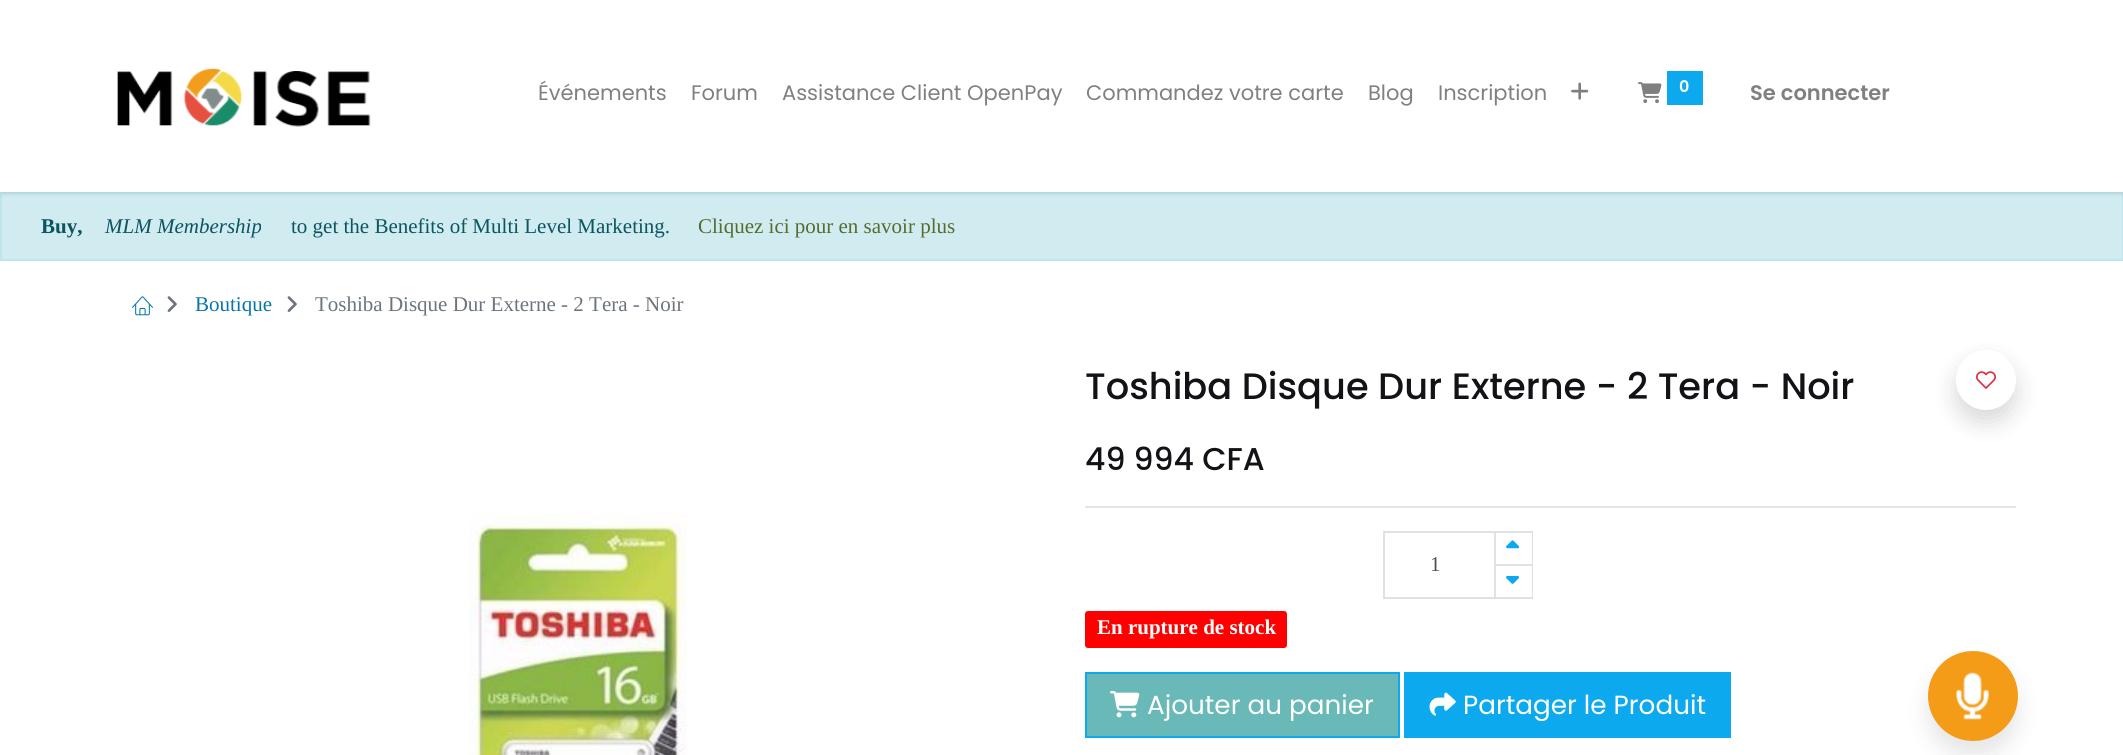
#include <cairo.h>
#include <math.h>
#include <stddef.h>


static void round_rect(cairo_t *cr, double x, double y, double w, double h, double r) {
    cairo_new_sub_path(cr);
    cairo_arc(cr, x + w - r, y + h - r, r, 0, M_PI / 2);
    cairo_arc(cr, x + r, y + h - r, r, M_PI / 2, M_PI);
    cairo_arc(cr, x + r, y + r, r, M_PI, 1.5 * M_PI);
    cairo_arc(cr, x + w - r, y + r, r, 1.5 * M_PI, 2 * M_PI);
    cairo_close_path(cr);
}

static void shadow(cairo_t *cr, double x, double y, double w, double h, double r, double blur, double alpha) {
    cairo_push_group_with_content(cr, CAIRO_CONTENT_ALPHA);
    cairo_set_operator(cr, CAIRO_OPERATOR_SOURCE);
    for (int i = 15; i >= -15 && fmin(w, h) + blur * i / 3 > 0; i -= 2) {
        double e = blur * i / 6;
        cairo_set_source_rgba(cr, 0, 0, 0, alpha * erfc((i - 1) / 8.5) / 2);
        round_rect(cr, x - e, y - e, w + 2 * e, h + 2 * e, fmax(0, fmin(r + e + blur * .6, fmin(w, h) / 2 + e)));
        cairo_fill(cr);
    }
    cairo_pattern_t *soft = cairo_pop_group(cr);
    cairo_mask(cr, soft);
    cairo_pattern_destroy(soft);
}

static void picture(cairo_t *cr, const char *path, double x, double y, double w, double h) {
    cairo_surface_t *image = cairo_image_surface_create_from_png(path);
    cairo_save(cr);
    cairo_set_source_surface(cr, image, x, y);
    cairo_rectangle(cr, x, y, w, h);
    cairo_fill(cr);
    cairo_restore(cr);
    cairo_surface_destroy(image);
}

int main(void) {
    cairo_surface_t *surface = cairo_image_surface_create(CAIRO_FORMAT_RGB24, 2123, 755);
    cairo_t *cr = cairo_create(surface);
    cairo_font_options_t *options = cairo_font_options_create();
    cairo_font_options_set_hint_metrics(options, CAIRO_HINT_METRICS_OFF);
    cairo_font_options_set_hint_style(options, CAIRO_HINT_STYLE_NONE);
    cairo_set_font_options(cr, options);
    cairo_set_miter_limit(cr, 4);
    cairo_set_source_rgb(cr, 1, 1, 1);
    cairo_paint(cr);
    cairo_set_source_rgb(cr, 0.82, 0.925, 0.945);
    cairo_rectangle(cr, 1, 193, 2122, 67);
    cairo_fill_preserve(cr);
    cairo_set_source_rgb(cr, 0.745, 0.898, 0.922);
    cairo_stroke(cr);
    cairo_save(cr);
    cairo_rectangle(cr, 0, 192, 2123, 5);
    cairo_clip(cr);
    cairo_set_source_rgb(cr, 0, 0, 0);
    shadow(cr, 0, 3, 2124, 192, 0, 3, 0.07);
    cairo_restore(cr);
    picture(cr, "img1.png", 117, 68, 254, 59);
    cairo_select_font_face(cr, "Poppins", CAIRO_FONT_SLANT_NORMAL, CAIRO_FONT_WEIGHT_NORMAL);
    cairo_set_font_size(cr, 21);
    cairo_set_source_rgb(cr, 0.502, 0.502, 0.502);
    cairo_move_to(cr, 538, 100);
    cairo_show_text(cr, "Événements");
    cairo_move_to(cr, 691, 100);
    cairo_show_text(cr, "Forum");
    cairo_move_to(cr, 782, 100);
    cairo_show_text(cr, "Assistance Client OpenPay");
    cairo_move_to(cr, 1086, 100);
    cairo_show_text(cr, "Commandez votre carte");
    cairo_move_to(cr, 1368, 100);
    cairo_show_text(cr, "Blog");
    cairo_move_to(cr, 1438, 100);
    cairo_show_text(cr, "Inscription");
    picture(cr, "img2.png", 1571, 82, 18, 18);
    picture(cr, "img3.png", 1638, 82, 24, 22);
    cairo_set_source_rgb(cr, 0.051, 0.663, 0.937);
    cairo_rectangle(cr, 1667, 71, 36, 34);
    cairo_fill(cr);
    cairo_select_font_face(cr, "Poppins SemiBold", CAIRO_FONT_SLANT_NORMAL, CAIRO_FONT_WEIGHT_NORMAL);
    cairo_set_font_size(cr, 16);
    cairo_set_source_rgb(cr, 1, 1, 1);
    cairo_move_to(cr, 1679, 92);
    cairo_show_text(cr, "0");
    cairo_set_font_size(cr, 21);
    cairo_set_source_rgb(cr, 0.502, 0.502, 0.502);
    cairo_move_to(cr, 1750, 100);
    cairo_show_text(cr, "Se connecter");
    cairo_select_font_face(cr, "Liberation Serif", CAIRO_FONT_SLANT_NORMAL, CAIRO_FONT_WEIGHT_BOLD);
    cairo_set_source_rgb(cr, 0.047, 0.329, 0.376);
    cairo_move_to(cr, 41, 233);
    cairo_show_text(cr, "Buy,");
    cairo_select_font_face(cr, "Liberation Serif", CAIRO_FONT_SLANT_ITALIC, CAIRO_FONT_WEIGHT_NORMAL);
    cairo_move_to(cr, 105, 233);
    cairo_show_text(cr, "MLM Membership");
    cairo_select_font_face(cr, "Liberation Serif", CAIRO_FONT_SLANT_NORMAL, CAIRO_FONT_WEIGHT_NORMAL);
    cairo_move_to(cr, 291, 233);
    cairo_show_text(cr, "to get the Benefits of Multi Level Marketing.");
    cairo_set_source_rgb(cr, 0.333, 0.42, 0.184);
    cairo_move_to(cr, 698, 233);
    cairo_show_text(cr, "Cliquez ici pour en savoir plus");
    picture(cr, "img4.png", 132, 296, 21, 20);
    picture(cr, "img5.png", 167, 296, 10, 16);
    cairo_set_source_rgb(cr, 0.035, 0.463, 0.651);
    cairo_move_to(cr, 195, 311);
    cairo_show_text(cr, "Boutique");
    picture(cr, "img5.png", 287, 296, 10, 16);
    cairo_set_source_rgb(cr, 0.424, 0.459, 0.49);
    cairo_move_to(cr, 315, 311);
    cairo_show_text(cr, "Toshiba Disque Dur Externe - 2 Tera - Noir");
    picture(cr, "img6.png", 469, 513, 218, 242);
    cairo_select_font_face(cr, "Poppins Medium", CAIRO_FONT_SLANT_NORMAL, CAIRO_FONT_WEIGHT_NORMAL);
    cairo_set_font_size(cr, 36.75);
    cairo_set_source_rgb(cr, 0.071, 0.078, 0.086);
    cairo_move_to(cr, 1085, 399);
    cairo_show_text(cr, "Toshiba Disque Dur Externe - 2 Tera - Noir");
    cairo_set_font_size(cr, 31.5);
    cairo_move_to(cr, 1085, 470);
    cairo_show_text(cr, "49 994 CFA");
    cairo_set_source_rgb(cr, 0, 0, 0);
    shadow(cr, 1956, 362, 60, 60, 30, 12, 0.15);
    cairo_set_source_rgb(cr, 1, 1, 1);
    cairo_arc(cr, 1986, 380, 30, 0, 2 * M_PI);
    cairo_fill(cr);
    picture(cr, "img7.png", 1976, 371, 20, 18);
    cairo_set_source_rgb(cr, 0.902, 0.902, 0.902);
    cairo_rectangle(cr, 1085, 506, 931, 2);
    cairo_fill(cr);
    cairo_rectangle(cr, 1384, 532, 148, 66);
    cairo_set_source_rgb(cr, 0.871, 0.886, 0.902);
    cairo_stroke(cr);
    cairo_select_font_face(cr, "Liberation Serif", CAIRO_FONT_SLANT_NORMAL, CAIRO_FONT_WEIGHT_NORMAL);
    cairo_set_font_size(cr, 21);
    cairo_set_source_rgb(cr, 0.286, 0.314, 0.341);
    cairo_move_to(cr, 1430, 571);
    cairo_show_text(cr, "1");
    cairo_set_source_rgb(cr, 1, 1, 1);
    cairo_rectangle(cr, 1531, 533, 1, 31);
    cairo_fill(cr);
    cairo_set_source_rgb(cr, 0.871, 0.886, 0.902);
    cairo_rectangle(cr, 1494, 564, 2, 33);
    cairo_fill(cr);
    cairo_rectangle(cr, 1494, 564, 38, 2);
    cairo_fill(cr);
    cairo_rectangle(cr, 1494, 533, 2, 33);
    cairo_fill(cr);
    picture(cr, "img8.png", 1506, 540, 14, 9);
    cairo_set_source_rgb(cr, 1, 1, 1);
    cairo_rectangle(cr, 1531, 566, 1, 31);
    cairo_fill(cr);
    picture(cr, "img9.png", 1506, 576, 14, 8);
    cairo_set_source_rgb(cr, 1, 0, 0);
    round_rect(cr, 1085, 611, 202, 37, 3);
    cairo_fill(cr);
    cairo_select_font_face(cr, "Liberation Serif", CAIRO_FONT_SLANT_NORMAL, CAIRO_FONT_WEIGHT_BOLD);
    cairo_set_source_rgb(cr, 1, 1, 1);
    cairo_move_to(cr, 1097, 634);
    cairo_show_text(cr, "En rupture de stock");
    cairo_set_source_rgb(cr, 0.408, 0.725, 0.718);
    cairo_rectangle(cr, 1086, 673, 313, 64);
    cairo_fill_preserve(cr);
    cairo_set_source_rgb(cr, 0.051, 0.663, 0.937);
    cairo_stroke(cr);
    picture(cr, "img10.png", 1110, 691, 30, 27);
    cairo_select_font_face(cr, "Poppins", CAIRO_FONT_SLANT_NORMAL, CAIRO_FONT_WEIGHT_NORMAL);
    cairo_set_font_size(cr, 26.25);
    cairo_set_source_rgb(cr, 1, 1, 1);
    cairo_move_to(cr, 1147, 714);
    cairo_show_text(cr, "Ajouter au panier");
    cairo_set_source_rgb(cr, 0.051, 0.663, 0.937);
    cairo_rectangle(cr, 1404, 672, 327, 66);
    cairo_fill(cr);
    picture(cr, "img11.png", 1429, 692, 27, 24);
    cairo_set_source_rgb(cr, 1, 1, 1);
    cairo_move_to(cr, 1463, 714);
    cairo_show_text(cr, "Partager le Produit");
    cairo_set_source_rgb(cr, 0, 0, 0);
    shadow(cr, 1928, 666, 90, 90, 45, 11, 0.1);
    cairo_set_source_rgb(cr, 0.957, 0.612, 0.09);
    cairo_arc(cr, 1973, 696, 45, 0, 2 * M_PI);
    cairo_fill(cr);
    picture(cr, "img12.png", 1956, 672, 33, 48);
    cairo_surface_write_to_png(surface, "page.png");
    cairo_font_options_destroy(options);
    cairo_destroy(cr);
    cairo_surface_destroy(surface);
    return 0;
}
